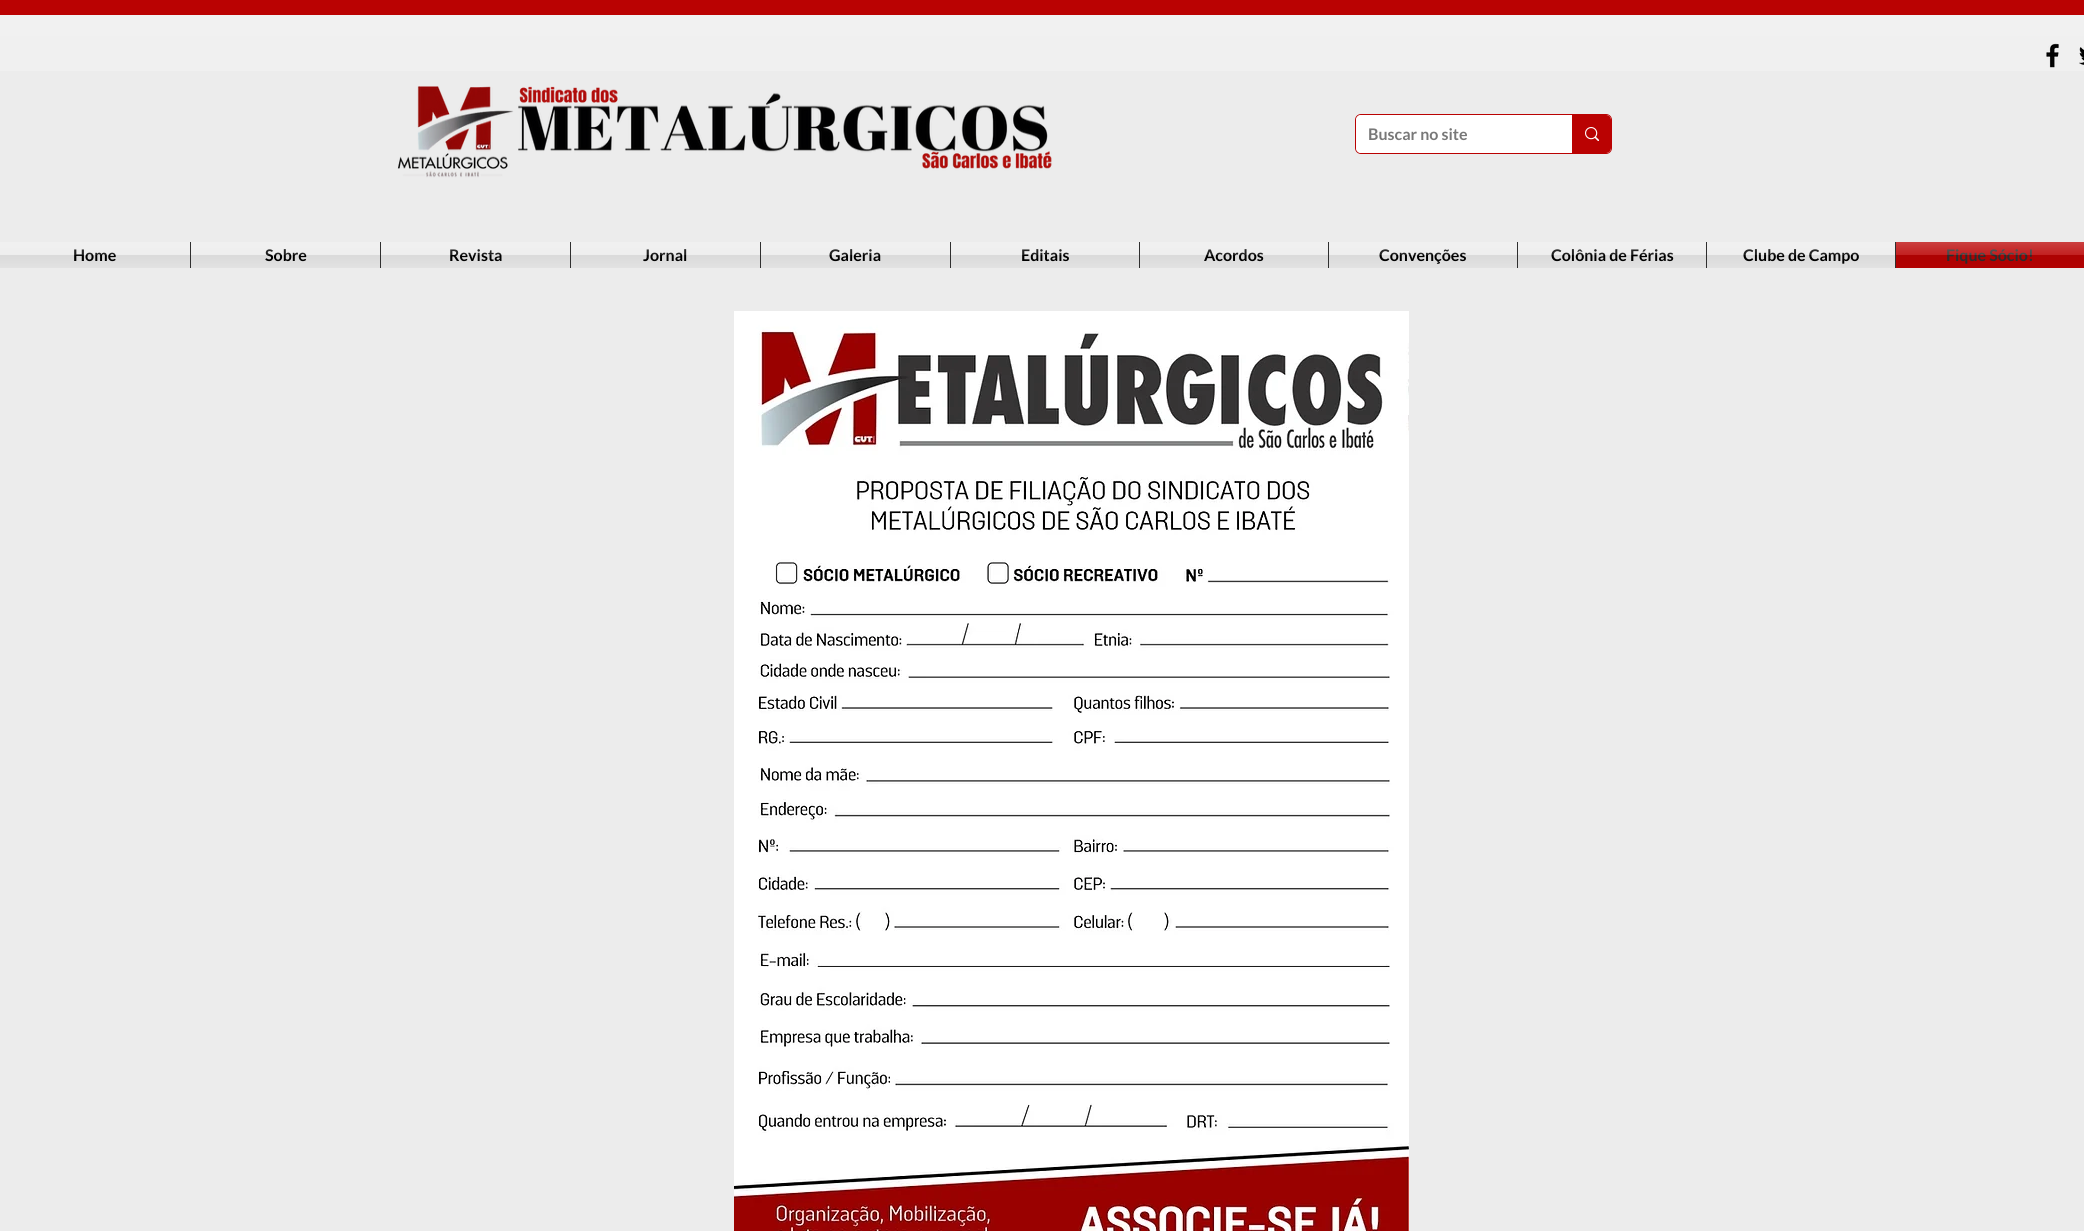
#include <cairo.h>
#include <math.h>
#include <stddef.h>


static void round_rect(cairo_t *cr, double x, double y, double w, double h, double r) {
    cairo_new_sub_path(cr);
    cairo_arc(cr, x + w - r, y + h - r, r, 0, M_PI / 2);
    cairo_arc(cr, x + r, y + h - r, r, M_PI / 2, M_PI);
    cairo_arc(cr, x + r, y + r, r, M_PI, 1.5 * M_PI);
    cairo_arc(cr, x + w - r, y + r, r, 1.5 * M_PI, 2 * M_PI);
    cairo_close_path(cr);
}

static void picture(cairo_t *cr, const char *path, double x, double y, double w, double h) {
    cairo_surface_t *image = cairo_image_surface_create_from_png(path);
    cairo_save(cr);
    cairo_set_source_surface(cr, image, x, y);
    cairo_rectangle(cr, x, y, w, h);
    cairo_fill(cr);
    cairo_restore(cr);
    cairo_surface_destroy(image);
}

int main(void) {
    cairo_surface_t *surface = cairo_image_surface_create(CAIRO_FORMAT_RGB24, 2084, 1231);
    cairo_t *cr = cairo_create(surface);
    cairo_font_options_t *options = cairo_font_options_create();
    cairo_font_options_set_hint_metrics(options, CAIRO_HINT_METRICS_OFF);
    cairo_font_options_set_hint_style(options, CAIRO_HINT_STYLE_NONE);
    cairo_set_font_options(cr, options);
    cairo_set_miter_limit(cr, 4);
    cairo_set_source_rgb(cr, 0.922, 0.922, 0.922);
    cairo_paint(cr);
    picture(cr, "img1.png", 0, 15, 2084, 56);
    cairo_set_source_rgb(cr, 0.729, 0.008, 0.008);
    cairo_rectangle(cr, 0, 0, 2084, 15);
    cairo_fill(cr);
    picture(cr, "img2.png", 2046, 43, 13, 25);
    picture(cr, "img3.png", 2079, 47, 5, 18);
    picture(cr, "img4.png", 397, 86, 655, 92);
    round_rect(cr, 1355.5, 114.5, 256, 39, 5.5);
    cairo_set_line_width(cr, 1);
    cairo_stroke(cr);
    cairo_set_source_rgb(cr, 1, 1, 1);
    round_rect(cr, 1356, 115, 255, 38, 5);
    cairo_fill(cr);
    cairo_select_font_face(cr, "Lato", CAIRO_FONT_SLANT_NORMAL, CAIRO_FONT_WEIGHT_BOLD);
    cairo_set_font_size(cr, 16);
    cairo_set_source_rgb(cr, 0.471, 0.471, 0.471);
    cairo_move_to(cr, 1368, 140);
    cairo_show_text(cr, "Buscar no site");
    cairo_set_source_rgb(cr, 0.729, 0.008, 0.008);
    cairo_new_path(cr);
    cairo_move_to(cr, 1572, 115);
    cairo_line_to(cr, 1606, 115);
    cairo_curve_to(cr, 1609, 115, 1611, 117, 1611, 120);
    cairo_line_to(cr, 1611, 148);
    cairo_curve_to(cr, 1611, 151, 1609, 153, 1606, 153);
    cairo_line_to(cr, 1572, 153);
    cairo_close_path(cr);
    cairo_fill(cr);
    picture(cr, "img5.png", 1585, 127, 14, 14);
    cairo_set_source_rgb(cr, 0, 0, 0);
    cairo_move_to(cr, 73, 261);
    cairo_show_text(cr, "Home");
    picture(cr, "img6.png", 0, 242, 190, 26);
    cairo_set_source_rgb(cr, 0.184, 0.184, 0.184);
    cairo_rectangle(cr, 190, 242, 1, 26);
    cairo_fill(cr);
    cairo_set_source_rgb(cr, 0, 0, 0);
    cairo_move_to(cr, 265, 261);
    cairo_show_text(cr, "Sobre");
    picture(cr, "img7.png", 191, 242, 189, 26);
    cairo_set_source_rgb(cr, 0.184, 0.184, 0.184);
    cairo_rectangle(cr, 380, 242, 1, 26);
    cairo_fill(cr);
    cairo_set_source_rgb(cr, 0, 0, 0);
    cairo_move_to(cr, 449, 261);
    cairo_show_text(cr, "Revista");
    picture(cr, "img8.png", 381, 242, 189, 26);
    cairo_set_source_rgb(cr, 0.184, 0.184, 0.184);
    cairo_rectangle(cr, 570, 242, 1, 26);
    cairo_fill(cr);
    cairo_set_source_rgb(cr, 0, 0, 0);
    cairo_move_to(cr, 643, 261);
    cairo_show_text(cr, "Jornal");
    picture(cr, "img9.png", 571, 242, 189, 26);
    cairo_set_source_rgb(cr, 0.184, 0.184, 0.184);
    cairo_rectangle(cr, 760, 242, 1, 26);
    cairo_fill(cr);
    cairo_set_source_rgb(cr, 0, 0, 0);
    cairo_move_to(cr, 829, 261);
    cairo_show_text(cr, "Galeria");
    picture(cr, "img10.png", 761, 242, 189, 26);
    cairo_set_source_rgb(cr, 0.184, 0.184, 0.184);
    cairo_rectangle(cr, 950, 242, 1, 26);
    cairo_fill(cr);
    cairo_set_source_rgb(cr, 0, 0, 0);
    cairo_move_to(cr, 1021, 261);
    cairo_show_text(cr, "Editais");
    picture(cr, "img11.png", 951, 242, 188, 26);
    cairo_set_source_rgb(cr, 0.184, 0.184, 0.184);
    cairo_rectangle(cr, 1139, 242, 1, 26);
    cairo_fill(cr);
    cairo_set_source_rgb(cr, 0, 0, 0);
    cairo_move_to(cr, 1204, 261);
    cairo_show_text(cr, "Acordos");
    picture(cr, "img12.png", 1140, 242, 188, 26);
    cairo_set_source_rgb(cr, 0.184, 0.184, 0.184);
    cairo_rectangle(cr, 1328, 242, 1, 26);
    cairo_fill(cr);
    cairo_set_source_rgb(cr, 0, 0, 0);
    cairo_move_to(cr, 1379, 261);
    cairo_show_text(cr, "Convenções");
    picture(cr, "img13.png", 1329, 242, 188, 26);
    cairo_set_source_rgb(cr, 0.184, 0.184, 0.184);
    cairo_rectangle(cr, 1517, 242, 1, 26);
    cairo_fill(cr);
    cairo_set_source_rgb(cr, 0, 0, 0);
    cairo_move_to(cr, 1551, 261);
    cairo_show_text(cr, "Colônia de Férias");
    picture(cr, "img14.png", 1518, 242, 188, 26);
    cairo_set_source_rgb(cr, 0.184, 0.184, 0.184);
    cairo_rectangle(cr, 1706, 242, 1, 26);
    cairo_fill(cr);
    cairo_set_source_rgb(cr, 0, 0, 0);
    cairo_move_to(cr, 1743, 261);
    cairo_show_text(cr, "Clube de Campo");
    picture(cr, "img15.png", 1707, 242, 188, 26);
    cairo_set_source_rgb(cr, 0.729, 0.008, 0.008);
    cairo_rectangle(cr, 1896, 242, 188, 26);
    cairo_fill(cr);
    cairo_set_source_rgb(cr, 0.184, 0.184, 0.184);
    cairo_rectangle(cr, 1895, 242, 1, 26);
    cairo_fill(cr);
    cairo_move_to(cr, 1946, 261);
    cairo_show_text(cr, "Fique Sócio!");
    picture(cr, "img16.png", 1896, 242, 188, 26);
    picture(cr, "img17.png", 734, 311, 675, 920);
    cairo_surface_write_to_png(surface, "page.png");
    cairo_font_options_destroy(options);
    cairo_destroy(cr);
    cairo_surface_destroy(surface);
    return 0;
}
